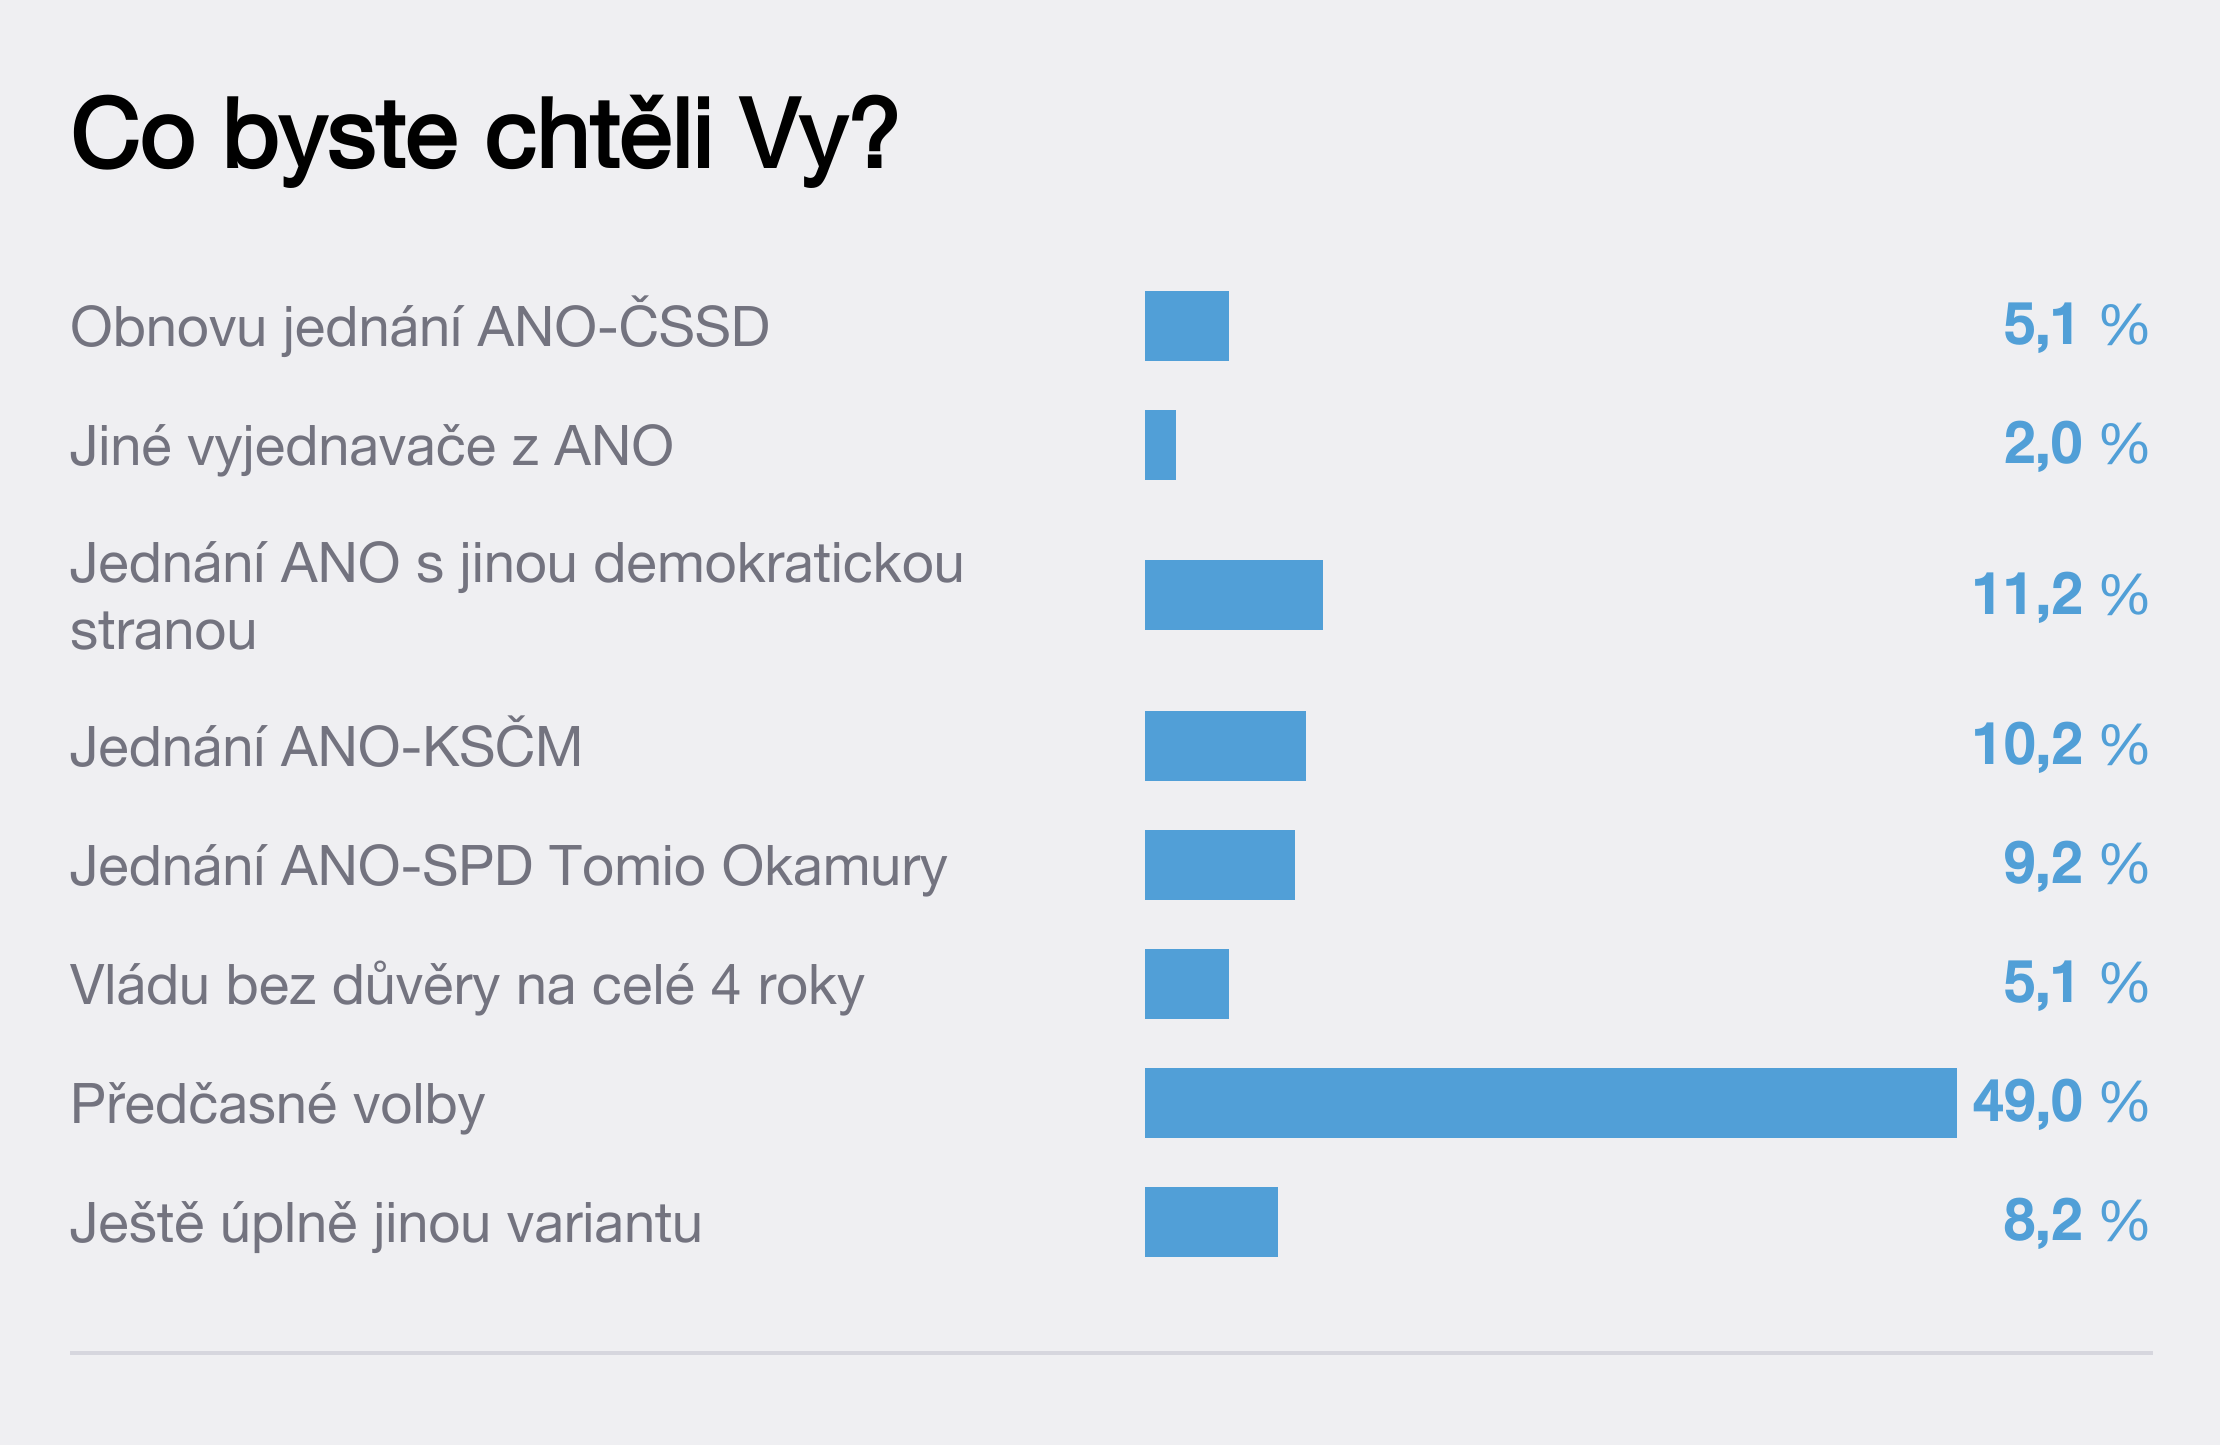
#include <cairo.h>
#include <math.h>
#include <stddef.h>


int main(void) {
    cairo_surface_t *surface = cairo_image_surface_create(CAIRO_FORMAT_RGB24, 2220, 1445);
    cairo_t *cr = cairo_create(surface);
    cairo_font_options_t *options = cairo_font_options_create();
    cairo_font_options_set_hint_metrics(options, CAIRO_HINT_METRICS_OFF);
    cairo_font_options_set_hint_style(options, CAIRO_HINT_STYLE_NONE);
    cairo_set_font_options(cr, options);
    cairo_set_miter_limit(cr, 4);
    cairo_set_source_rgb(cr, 0.937, 0.937, 0.949);
    cairo_paint(cr);
    cairo_select_font_face(cr, "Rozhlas", CAIRO_FONT_SLANT_NORMAL, CAIRO_FONT_WEIGHT_BOLD);
    cairo_set_font_size(cr, 96.5);
    cairo_set_source_rgb(cr, 0, 0, 0);
    cairo_move_to(cr, 70, 168);
    cairo_show_text(cr, "Co byste chtěli Vy?");
    cairo_select_font_face(cr, "Rozhlas", CAIRO_FONT_SLANT_NORMAL, CAIRO_FONT_WEIGHT_NORMAL);
    cairo_set_font_size(cr, 56);
    cairo_set_source_rgb(cr, 0.451, 0.451, 0.498);
    cairo_move_to(cr, 70, 346);
    cairo_show_text(cr, "Obnovu jednání ANO-ČSSD");
    cairo_set_source_rgb(cr, 0.318, 0.624, 0.843);
    cairo_rectangle(cr, 1145, 291, 84, 70);
    cairo_fill(cr);
    cairo_select_font_face(cr, "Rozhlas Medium", CAIRO_FONT_SLANT_NORMAL, CAIRO_FONT_WEIGHT_BOLD);
    cairo_move_to(cr, 2003, 344);
    cairo_show_text(cr, "5,1");
    cairo_select_font_face(cr, "Rozhlas", CAIRO_FONT_SLANT_NORMAL, CAIRO_FONT_WEIGHT_NORMAL);
    cairo_move_to(cr, 2097, 344);
    cairo_show_text(cr, "%");
    cairo_set_source_rgb(cr, 0.451, 0.451, 0.498);
    cairo_move_to(cr, 70, 465);
    cairo_show_text(cr, "Jiné vyjednavače z ANO");
    cairo_set_source_rgb(cr, 0.318, 0.624, 0.843);
    cairo_rectangle(cr, 1145, 410, 31, 70);
    cairo_fill(cr);
    cairo_select_font_face(cr, "Rozhlas Medium", CAIRO_FONT_SLANT_NORMAL, CAIRO_FONT_WEIGHT_BOLD);
    cairo_move_to(cr, 2003, 463);
    cairo_show_text(cr, "2,0");
    cairo_select_font_face(cr, "Rozhlas", CAIRO_FONT_SLANT_NORMAL, CAIRO_FONT_WEIGHT_NORMAL);
    cairo_move_to(cr, 2097, 463);
    cairo_show_text(cr, "%");
    cairo_set_source_rgb(cr, 0.451, 0.451, 0.498);
    cairo_move_to(cr, 70, 582);
    cairo_show_text(cr, "Jednání ANO s jinou demokratickou");
    cairo_move_to(cr, 70, 649);
    cairo_show_text(cr, "stranou");
    cairo_set_source_rgb(cr, 0.318, 0.624, 0.843);
    cairo_rectangle(cr, 1145, 560, 178, 70);
    cairo_fill(cr);
    cairo_select_font_face(cr, "Rozhlas Medium", CAIRO_FONT_SLANT_NORMAL, CAIRO_FONT_WEIGHT_BOLD);
    cairo_move_to(cr, 1972, 614);
    cairo_show_text(cr, "11,2");
    cairo_select_font_face(cr, "Rozhlas", CAIRO_FONT_SLANT_NORMAL, CAIRO_FONT_WEIGHT_NORMAL);
    cairo_move_to(cr, 2097, 614);
    cairo_show_text(cr, "%");
    cairo_set_source_rgb(cr, 0.451, 0.451, 0.498);
    cairo_move_to(cr, 70, 766);
    cairo_show_text(cr, "Jednání ANO-KSČM");
    cairo_set_source_rgb(cr, 0.318, 0.624, 0.843);
    cairo_rectangle(cr, 1145, 711, 161, 70);
    cairo_fill(cr);
    cairo_select_font_face(cr, "Rozhlas Medium", CAIRO_FONT_SLANT_NORMAL, CAIRO_FONT_WEIGHT_BOLD);
    cairo_move_to(cr, 1972, 764);
    cairo_show_text(cr, "10,2");
    cairo_select_font_face(cr, "Rozhlas", CAIRO_FONT_SLANT_NORMAL, CAIRO_FONT_WEIGHT_NORMAL);
    cairo_move_to(cr, 2097, 764);
    cairo_show_text(cr, "%");
    cairo_set_source_rgb(cr, 0.451, 0.451, 0.498);
    cairo_move_to(cr, 70, 885);
    cairo_show_text(cr, "Jednání ANO-SPD Tomio Okamury");
    cairo_set_source_rgb(cr, 0.318, 0.624, 0.843);
    cairo_rectangle(cr, 1145, 830, 150, 70);
    cairo_fill(cr);
    cairo_select_font_face(cr, "Rozhlas Medium", CAIRO_FONT_SLANT_NORMAL, CAIRO_FONT_WEIGHT_BOLD);
    cairo_move_to(cr, 2003, 883);
    cairo_show_text(cr, "9,2");
    cairo_select_font_face(cr, "Rozhlas", CAIRO_FONT_SLANT_NORMAL, CAIRO_FONT_WEIGHT_NORMAL);
    cairo_move_to(cr, 2097, 883);
    cairo_show_text(cr, "%");
    cairo_set_source_rgb(cr, 0.451, 0.451, 0.498);
    cairo_move_to(cr, 70, 1004);
    cairo_show_text(cr, "Vládu bez důvěry na celé 4 roky");
    cairo_set_source_rgb(cr, 0.318, 0.624, 0.843);
    cairo_rectangle(cr, 1145, 949, 84, 70);
    cairo_fill(cr);
    cairo_select_font_face(cr, "Rozhlas Medium", CAIRO_FONT_SLANT_NORMAL, CAIRO_FONT_WEIGHT_BOLD);
    cairo_move_to(cr, 2003, 1002);
    cairo_show_text(cr, "5,1");
    cairo_select_font_face(cr, "Rozhlas", CAIRO_FONT_SLANT_NORMAL, CAIRO_FONT_WEIGHT_NORMAL);
    cairo_move_to(cr, 2097, 1002);
    cairo_show_text(cr, "%");
    cairo_set_source_rgb(cr, 0.451, 0.451, 0.498);
    cairo_move_to(cr, 70, 1123);
    cairo_show_text(cr, "Předčasné volby");
    cairo_set_source_rgb(cr, 0.318, 0.624, 0.843);
    cairo_rectangle(cr, 1145, 1068, 812, 70);
    cairo_fill(cr);
    cairo_select_font_face(cr, "Rozhlas Medium", CAIRO_FONT_SLANT_NORMAL, CAIRO_FONT_WEIGHT_BOLD);
    cairo_move_to(cr, 1972, 1121);
    cairo_show_text(cr, "49,0");
    cairo_select_font_face(cr, "Rozhlas", CAIRO_FONT_SLANT_NORMAL, CAIRO_FONT_WEIGHT_NORMAL);
    cairo_move_to(cr, 2097, 1121);
    cairo_show_text(cr, "%");
    cairo_set_source_rgb(cr, 0.451, 0.451, 0.498);
    cairo_move_to(cr, 70, 1242);
    cairo_show_text(cr, "Ještě úplně jinou variantu");
    cairo_set_source_rgb(cr, 0.318, 0.624, 0.843);
    cairo_rectangle(cr, 1145, 1187, 133, 70);
    cairo_fill(cr);
    cairo_select_font_face(cr, "Rozhlas Medium", CAIRO_FONT_SLANT_NORMAL, CAIRO_FONT_WEIGHT_BOLD);
    cairo_move_to(cr, 2003, 1240);
    cairo_show_text(cr, "8,2");
    cairo_select_font_face(cr, "Rozhlas", CAIRO_FONT_SLANT_NORMAL, CAIRO_FONT_WEIGHT_NORMAL);
    cairo_move_to(cr, 2097, 1240);
    cairo_show_text(cr, "%");
    cairo_set_source_rgb(cr, 0.839, 0.839, 0.871);
    cairo_rectangle(cr, 70, 1351, 2083, 4);
    cairo_fill(cr);
    cairo_surface_write_to_png(surface, "page.png");
    cairo_font_options_destroy(options);
    cairo_destroy(cr);
    cairo_surface_destroy(surface);
    return 0;
}
